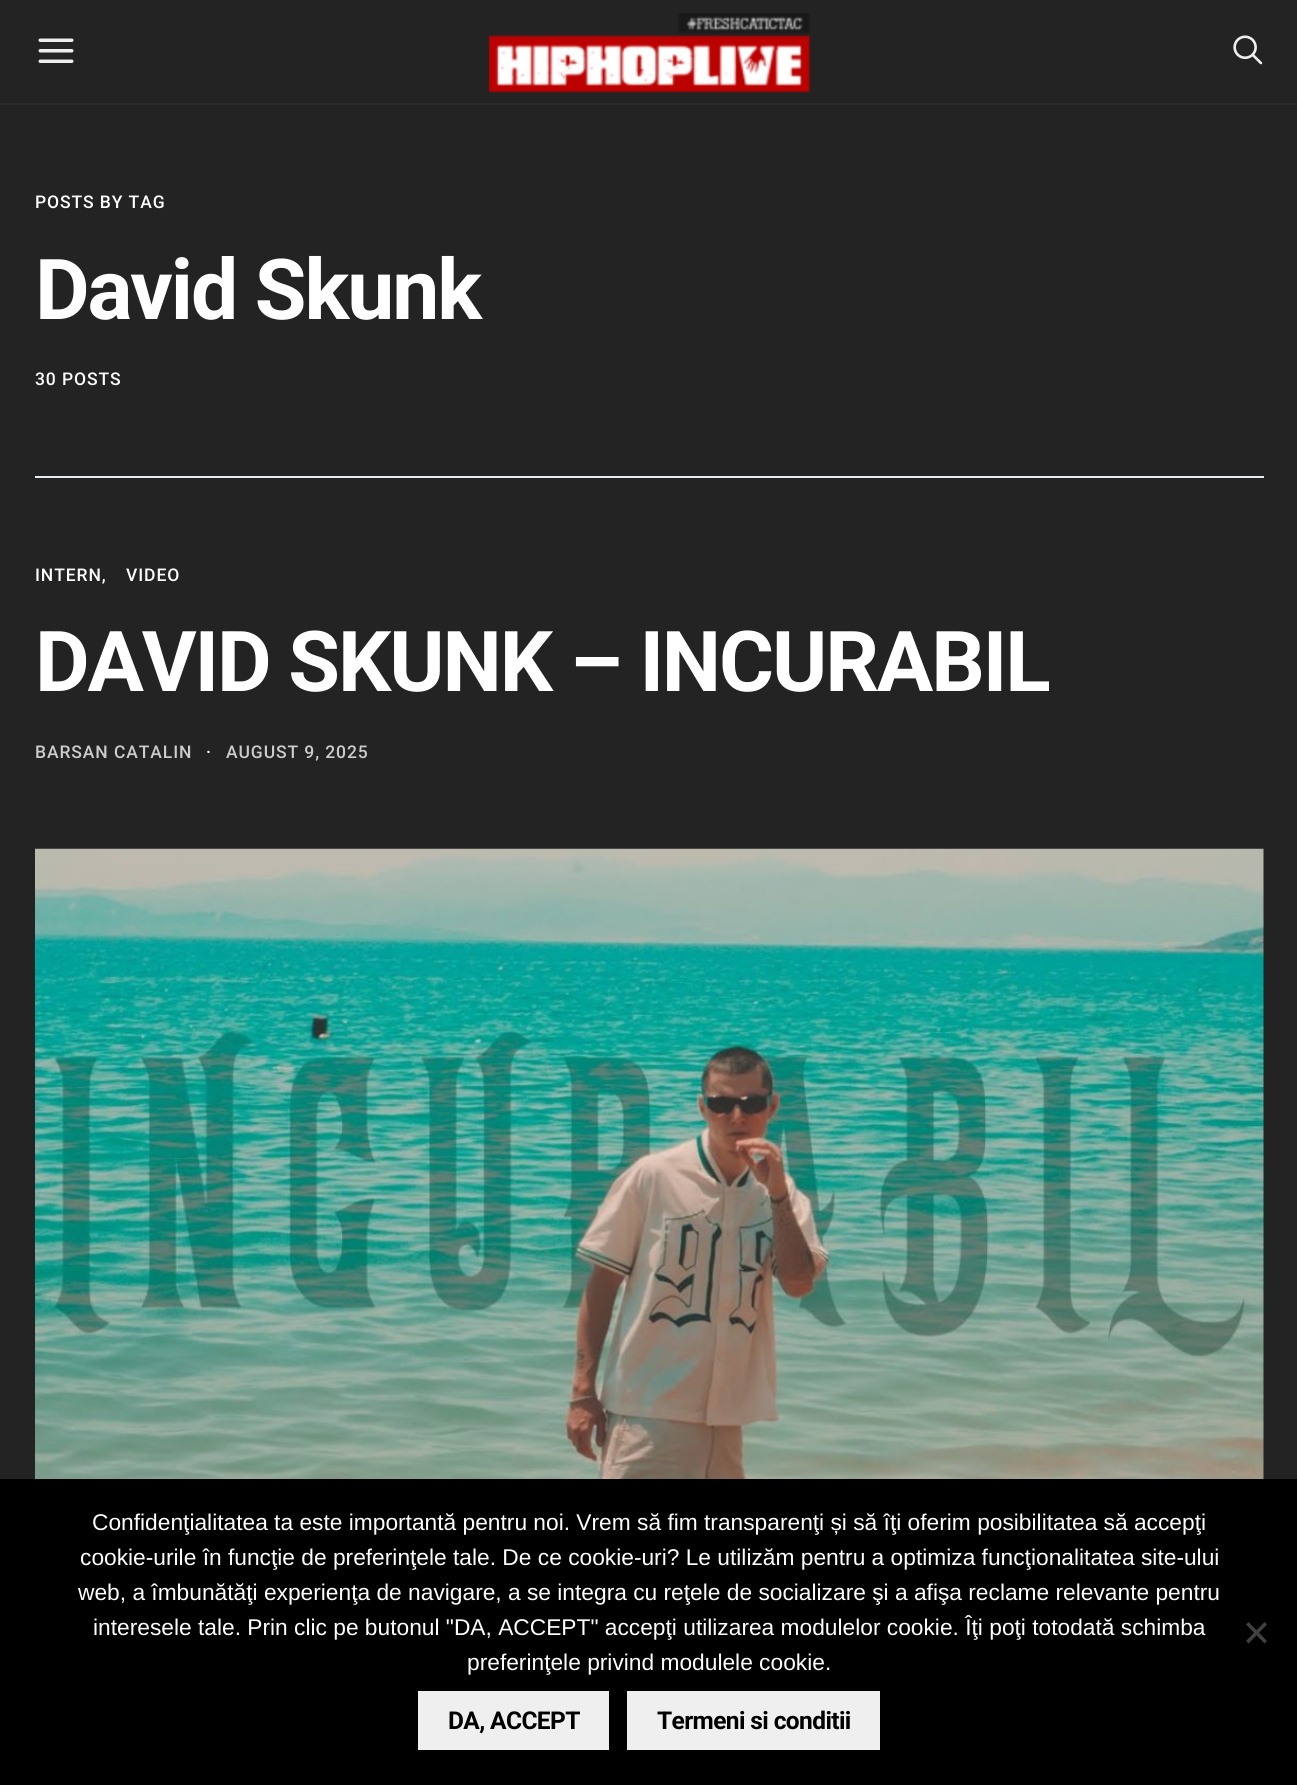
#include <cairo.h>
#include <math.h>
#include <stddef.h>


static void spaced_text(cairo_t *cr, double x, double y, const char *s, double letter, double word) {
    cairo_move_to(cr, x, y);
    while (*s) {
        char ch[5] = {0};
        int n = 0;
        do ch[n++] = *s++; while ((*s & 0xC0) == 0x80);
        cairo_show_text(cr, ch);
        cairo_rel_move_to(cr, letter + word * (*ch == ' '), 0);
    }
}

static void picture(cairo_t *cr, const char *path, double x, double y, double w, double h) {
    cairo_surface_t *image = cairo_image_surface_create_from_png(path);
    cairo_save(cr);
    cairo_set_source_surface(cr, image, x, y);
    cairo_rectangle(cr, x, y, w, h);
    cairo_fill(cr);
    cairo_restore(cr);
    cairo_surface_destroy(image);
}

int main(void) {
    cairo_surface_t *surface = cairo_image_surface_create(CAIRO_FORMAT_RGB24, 1297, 1785);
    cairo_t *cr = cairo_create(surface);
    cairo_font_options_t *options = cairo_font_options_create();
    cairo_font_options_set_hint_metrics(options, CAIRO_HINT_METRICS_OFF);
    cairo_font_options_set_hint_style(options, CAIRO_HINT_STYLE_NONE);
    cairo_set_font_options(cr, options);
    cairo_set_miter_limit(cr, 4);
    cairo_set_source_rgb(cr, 0.137, 0.137, 0.137);
    cairo_paint(cr);
    cairo_set_source_rgb(cr, 0.169, 0.169, 0.169);
    cairo_rectangle(cr, 0, 103, 1297, 2);
    cairo_fill(cr);
    picture(cr, "img1.png", 38, 38, 36, 25);
    picture(cr, "img2.png", 488, 13, 323, 80);
    picture(cr, "img3.png", 1233, 35, 30, 30);
    cairo_select_font_face(cr, "Roboto Medium", CAIRO_FONT_SLANT_NORMAL, CAIRO_FONT_WEIGHT_NORMAL);
    cairo_set_font_size(cr, 17.5);
    cairo_set_source_rgb(cr, 1, 1, 1);
    spaced_text(cr, 35, 208, "POSTS BY TAG", 0.9, 0);
    cairo_select_font_face(cr, "Roboto", CAIRO_FONT_SLANT_NORMAL, CAIRO_FONT_WEIGHT_BOLD);
    cairo_set_font_size(cr, 84);
    spaced_text(cr, 35, 319, "David Skunk", -2.1, 0);
    cairo_select_font_face(cr, "Roboto Medium", CAIRO_FONT_SLANT_NORMAL, CAIRO_FONT_WEIGHT_NORMAL);
    cairo_set_font_size(cr, 17.5);
    spaced_text(cr, 35, 385, "30 POSTS", 0.9, 0);
    cairo_set_source_rgb(cr, 0.914, 0.925, 0.937);
    cairo_rectangle(cr, 35, 476, 1229, 2);
    cairo_fill(cr);
    cairo_set_source_rgb(cr, 1, 1, 1);
    spaced_text(cr, 35, 581, "INTERN,", 0.9, 0);
    spaced_text(cr, 126, 581, "VIDEO", 0.9, 0);
    cairo_select_font_face(cr, "Roboto", CAIRO_FONT_SLANT_NORMAL, CAIRO_FONT_WEIGHT_BOLD);
    cairo_set_font_size(cr, 84);
    spaced_text(cr, 35, 691, "DAVID SKUNK – INCURABIL", -2.1, 0);
    cairo_select_font_face(cr, "Roboto Medium", CAIRO_FONT_SLANT_NORMAL, CAIRO_FONT_WEIGHT_NORMAL);
    cairo_set_font_size(cr, 17.5);
    cairo_set_source_rgb(cr, 0.8, 0.8, 0.8);
    spaced_text(cr, 35, 758, "BARSAN CATALIN", 0.9, 0);
    cairo_set_source_rgb(cr, 1, 1, 1);
    spaced_text(cr, 206, 758, "·", 0.9, 0);
    cairo_set_source_rgb(cr, 0.8, 0.8, 0.8);
    spaced_text(cr, 226, 758, "AUGUST 9, 2025", 0.9, 0);
    picture(cr, "img4.png", 35, 848, 1229, 631);
    cairo_set_source_rgb(cr, 0, 0, 0);
    cairo_rectangle(cr, 0, 1479, 1297, 306);
    cairo_fill(cr);
    cairo_select_font_face(cr, "Liberation Sans", CAIRO_FONT_SLANT_NORMAL, CAIRO_FONT_WEIGHT_NORMAL);
    cairo_set_font_size(cr, 22.75);
    cairo_set_source_rgb(cr, 1, 1, 1);
    cairo_move_to(cr, 92, 1530);
    cairo_show_text(cr, "Confidenţialitatea ta este importantă pentru noi. Vrem să fim transparenţi și să îţi oferim posibilitatea să accepţi");
    cairo_move_to(cr, 80, 1565);
    cairo_show_text(cr, "cookie-urile în funcţie de preferinţele tale. De ce cookie-uri? Le utilizăm pentru a optimiza funcţionalitatea site-ului");
    cairo_move_to(cr, 78, 1600);
    cairo_show_text(cr, "web, a îmbunătăţi experienţa de navigare, a se integra cu reţele de socializare şi a afişa reclame relevante pentru");
    cairo_move_to(cr, 93, 1635);
    cairo_show_text(cr, "interesele tale. Prin clic pe butonul \"DA, ACCEPT\" accepţi utilizarea modulelor cookie. Îţi poţi totodată schimba");
    cairo_move_to(cr, 467, 1670);
    cairo_show_text(cr, "preferinţele privind modulele cookie.");
    cairo_set_source_rgb(cr, 0.251, 0.251, 0.251);
    cairo_new_path(cr);
    cairo_move_to(cr, 1264.5, 1622);
    cairo_line_to(cr, 1267, 1624.5);
    cairo_line_to(cr, 1248.5, 1643.5);
    cairo_line_to(cr, 1246, 1641);
    cairo_close_path(cr);
    cairo_fill(cr);
    cairo_new_path(cr);
    cairo_move_to(cr, 1246, 1624.5);
    cairo_line_to(cr, 1248.5, 1622);
    cairo_line_to(cr, 1267, 1641);
    cairo_line_to(cr, 1264.5, 1643.5);
    cairo_close_path(cr);
    cairo_fill(cr);
    cairo_set_source_rgb(cr, 0.937, 0.937, 0.937);
    cairo_rectangle(cr, 418, 1691, 191, 59);
    cairo_fill(cr);
    cairo_select_font_face(cr, "Roboto", CAIRO_FONT_SLANT_NORMAL, CAIRO_FONT_WEIGHT_BOLD);
    cairo_set_font_size(cr, 24.5);
    cairo_set_source_rgb(cr, 0, 0, 0);
    spaced_text(cr, 448, 1729, "DA, ACCEPT", -0.6, 0);
    cairo_set_source_rgb(cr, 0.937, 0.937, 0.937);
    cairo_rectangle(cr, 627, 1691, 253, 59);
    cairo_fill(cr);
    cairo_set_source_rgb(cr, 0, 0, 0);
    spaced_text(cr, 657, 1729, "Termeni si conditii", -0.6, 0);
    cairo_surface_write_to_png(surface, "page.png");
    cairo_font_options_destroy(options);
    cairo_destroy(cr);
    cairo_surface_destroy(surface);
    return 0;
}
